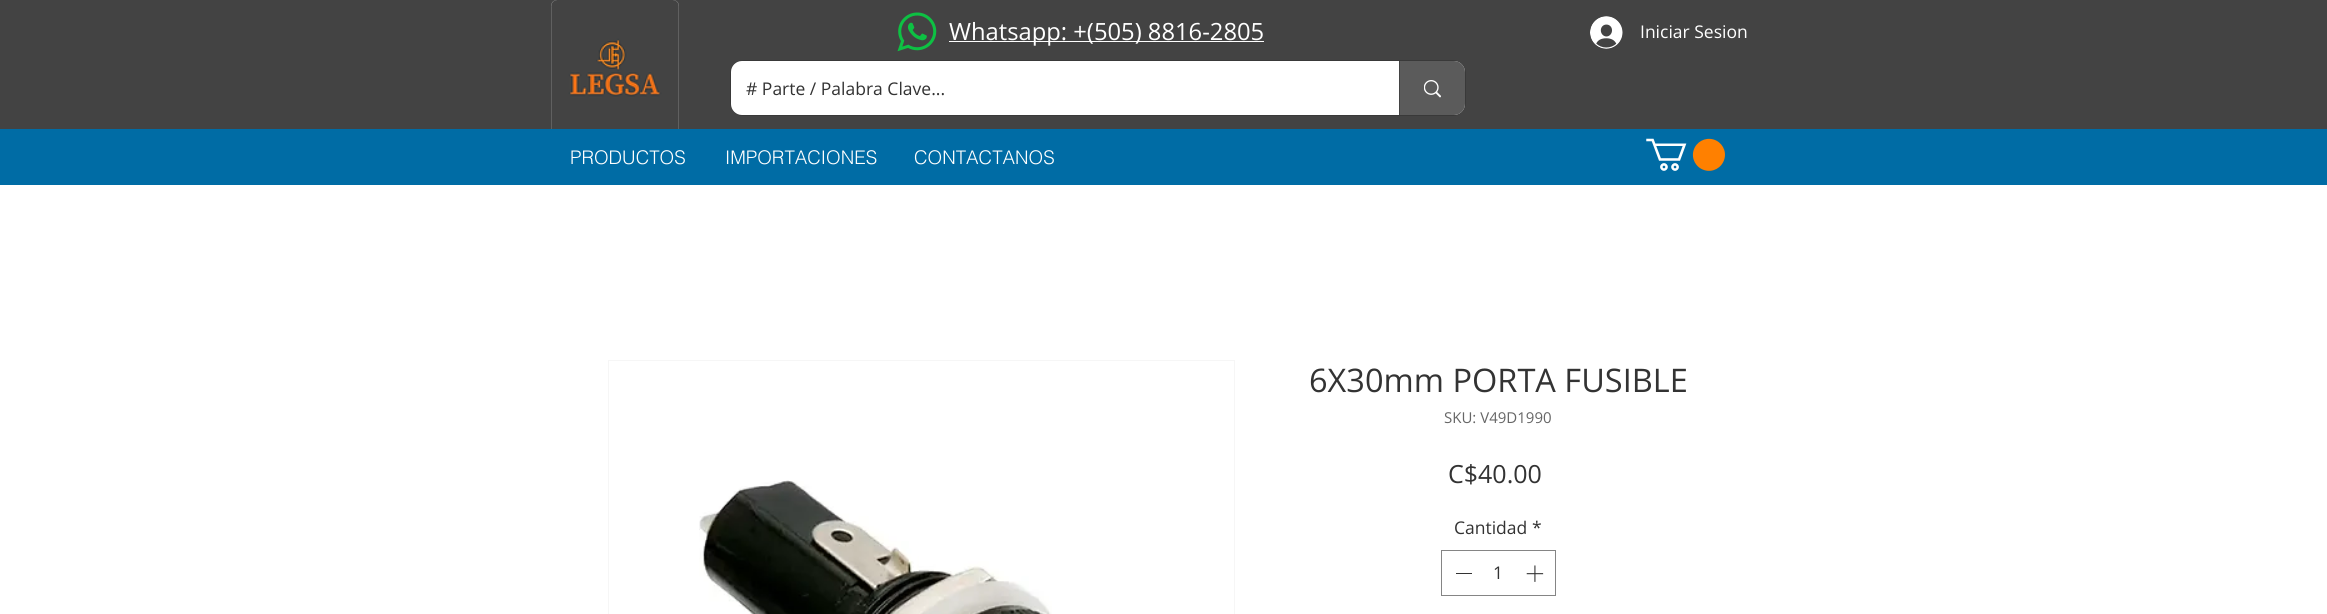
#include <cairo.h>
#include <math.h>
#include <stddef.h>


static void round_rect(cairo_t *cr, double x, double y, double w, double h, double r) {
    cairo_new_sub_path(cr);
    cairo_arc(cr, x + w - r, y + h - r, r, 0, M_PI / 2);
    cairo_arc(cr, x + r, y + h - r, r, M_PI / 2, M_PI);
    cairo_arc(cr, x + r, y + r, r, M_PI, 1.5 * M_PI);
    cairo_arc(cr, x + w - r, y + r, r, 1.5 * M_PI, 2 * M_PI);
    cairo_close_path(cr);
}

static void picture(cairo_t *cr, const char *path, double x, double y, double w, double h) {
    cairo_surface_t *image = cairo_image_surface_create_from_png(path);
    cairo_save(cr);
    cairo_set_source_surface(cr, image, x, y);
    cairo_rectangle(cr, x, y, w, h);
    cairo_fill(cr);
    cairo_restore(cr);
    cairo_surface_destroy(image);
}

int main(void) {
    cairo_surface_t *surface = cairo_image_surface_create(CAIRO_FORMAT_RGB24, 2327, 614);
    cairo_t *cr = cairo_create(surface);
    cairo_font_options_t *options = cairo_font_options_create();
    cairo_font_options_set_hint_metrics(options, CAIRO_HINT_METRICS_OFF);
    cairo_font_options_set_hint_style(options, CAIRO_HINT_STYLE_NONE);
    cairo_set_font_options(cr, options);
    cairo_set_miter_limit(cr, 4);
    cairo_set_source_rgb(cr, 1, 1, 1);
    cairo_paint(cr);
    cairo_set_source_rgb(cr, 0.263, 0.263, 0.263);
    cairo_rectangle(cr, 0, 0, 2327, 129);
    cairo_fill(cr);
    cairo_set_source_rgb(cr, 0.529, 0.529, 0.529);
    cairo_new_path(cr);
    cairo_move_to(cr, 557, 0);
    cairo_line_to(cr, 673, 0);
    cairo_curve_to(cr, 676.5, 0, 679, 2.5, 679, 6);
    cairo_line_to(cr, 679, 134);
    cairo_line_to(cr, 551, 134);
    cairo_line_to(cr, 551, 6);
    cairo_curve_to(cr, 551, 2.5, 553.5, 0, 557, 0);
    cairo_close_path(cr);
    cairo_fill(cr);
    picture(cr, "img1.png", 551, 0, 128, 129);
    picture(cr, "img2.png", 897, 12, 40, 40);
    cairo_set_source_rgb(cr, 1, 1, 1);
    cairo_rectangle(cr, 949, 41, 315, 1);
    cairo_fill(cr);
    cairo_select_font_face(cr, "Open Sans", CAIRO_FONT_SLANT_NORMAL, CAIRO_FONT_WEIGHT_NORMAL);
    cairo_set_font_size(cr, 23.75);
    cairo_move_to(cr, 949, 40);
    cairo_show_text(cr, "Whatsapp: +(505) 8816-2805");
    picture(cr, "img3.png", 1590, 16, 33, 33);
    cairo_set_font_size(cr, 17.5);
    cairo_move_to(cr, 1640, 38);
    cairo_show_text(cr, "Iniciar Sesion");
    round_rect(cr, 730.5, 60.5, 735, 55, 12.5);
    cairo_set_source_rgb(cr, 0.224, 0.224, 0.224);
    cairo_set_line_width(cr, 1);
    cairo_stroke(cr);
    cairo_set_source_rgb(cr, 1, 1, 1);
    round_rect(cr, 731, 61, 734, 54, 11);
    cairo_fill(cr);
    cairo_set_source_rgb(cr, 0.2, 0.2, 0.2);
    cairo_move_to(cr, 746, 95);
    cairo_show_text(cr, "# Parte / Palabra Clave...");
    cairo_set_source_rgba(cr, 0.2, 0.2, 0.2, 0.8);
    cairo_new_path(cr);
    cairo_move_to(cr, 1399, 61);
    cairo_line_to(cr, 1454, 61);
    cairo_curve_to(cr, 1460, 61, 1465, 66, 1465, 72);
    cairo_line_to(cr, 1465, 104);
    cairo_curve_to(cr, 1465, 110, 1460, 115, 1454, 115);
    cairo_line_to(cr, 1399, 115);
    cairo_close_path(cr);
    cairo_fill(cr);
    cairo_set_source_rgb(cr, 0.263, 0.263, 0.263);
    cairo_rectangle(cr, 1399, 61, 1, 54);
    cairo_fill(cr);
    picture(cr, "img4.png", 1424, 80, 17, 18);
    cairo_set_source_rgb(cr, 0, 0.424, 0.647);
    cairo_rectangle(cr, 0, 129, 2327, 56);
    cairo_fill(cr);
    cairo_select_font_face(cr, "helvetica Light", CAIRO_FONT_SLANT_NORMAL, CAIRO_FONT_WEIGHT_NORMAL);
    cairo_set_font_size(cr, 18.75);
    cairo_set_source_rgb(cr, 1, 1, 1);
    cairo_move_to(cr, 570, 164);
    cairo_show_text(cr, "PRODUCTOS");
    cairo_move_to(cr, 725, 164);
    cairo_show_text(cr, "IMPORTACIONES");
    cairo_move_to(cr, 914, 164);
    cairo_show_text(cr, "CONTACTANOS");
    picture(cr, "img5.png", 1646, 138, 79, 33);
    cairo_rectangle(cr, 608.5, 360.5, 626, 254);
    cairo_set_source_rgb(cr, 0.961, 0.961, 0.961);
    cairo_stroke(cr);
    picture(cr, "img6.png", 699, 480, 353, 134);
    cairo_select_font_face(cr, "Open Sans", CAIRO_FONT_SLANT_NORMAL, CAIRO_FONT_WEIGHT_NORMAL);
    cairo_set_font_size(cr, 32.5);
    cairo_set_source_rgb(cr, 0.2, 0.2, 0.2);
    cairo_move_to(cr, 1309, 392);
    cairo_show_text(cr, "6X30mm PORTA FUSIBLE");
    cairo_set_font_size(cr, 15);
    cairo_set_source_rgb(cr, 0.4, 0.4, 0.4);
    cairo_move_to(cr, 1444, 423);
    cairo_show_text(cr, "SKU: V49D1990");
    cairo_set_font_size(cr, 25);
    cairo_set_source_rgb(cr, 0.2, 0.2, 0.2);
    cairo_move_to(cr, 1448, 483);
    cairo_show_text(cr, "C$40.00");
    cairo_set_font_size(cr, 17.5);
    cairo_move_to(cr, 1454, 534);
    cairo_show_text(cr, "Cantidad");
    cairo_move_to(cr, 1532, 534);
    cairo_show_text(cr, "*");
    cairo_rectangle(cr, 1441.5, 550.5, 114, 45);
    cairo_set_source_rgb(cr, 0.522, 0.522, 0.522);
    cairo_stroke(cr);
    cairo_set_source_rgb(cr, 0.2, 0.2, 0.2);
    cairo_rectangle(cr, 1456, 573, 16, 1);
    cairo_fill(cr);
    cairo_move_to(cr, 1493, 579);
    cairo_show_text(cr, "1");
    picture(cr, "img7.png", 1526, 565, 18, 17);
    cairo_surface_write_to_png(surface, "page.png");
    cairo_font_options_destroy(options);
    cairo_destroy(cr);
    cairo_surface_destroy(surface);
    return 0;
}
